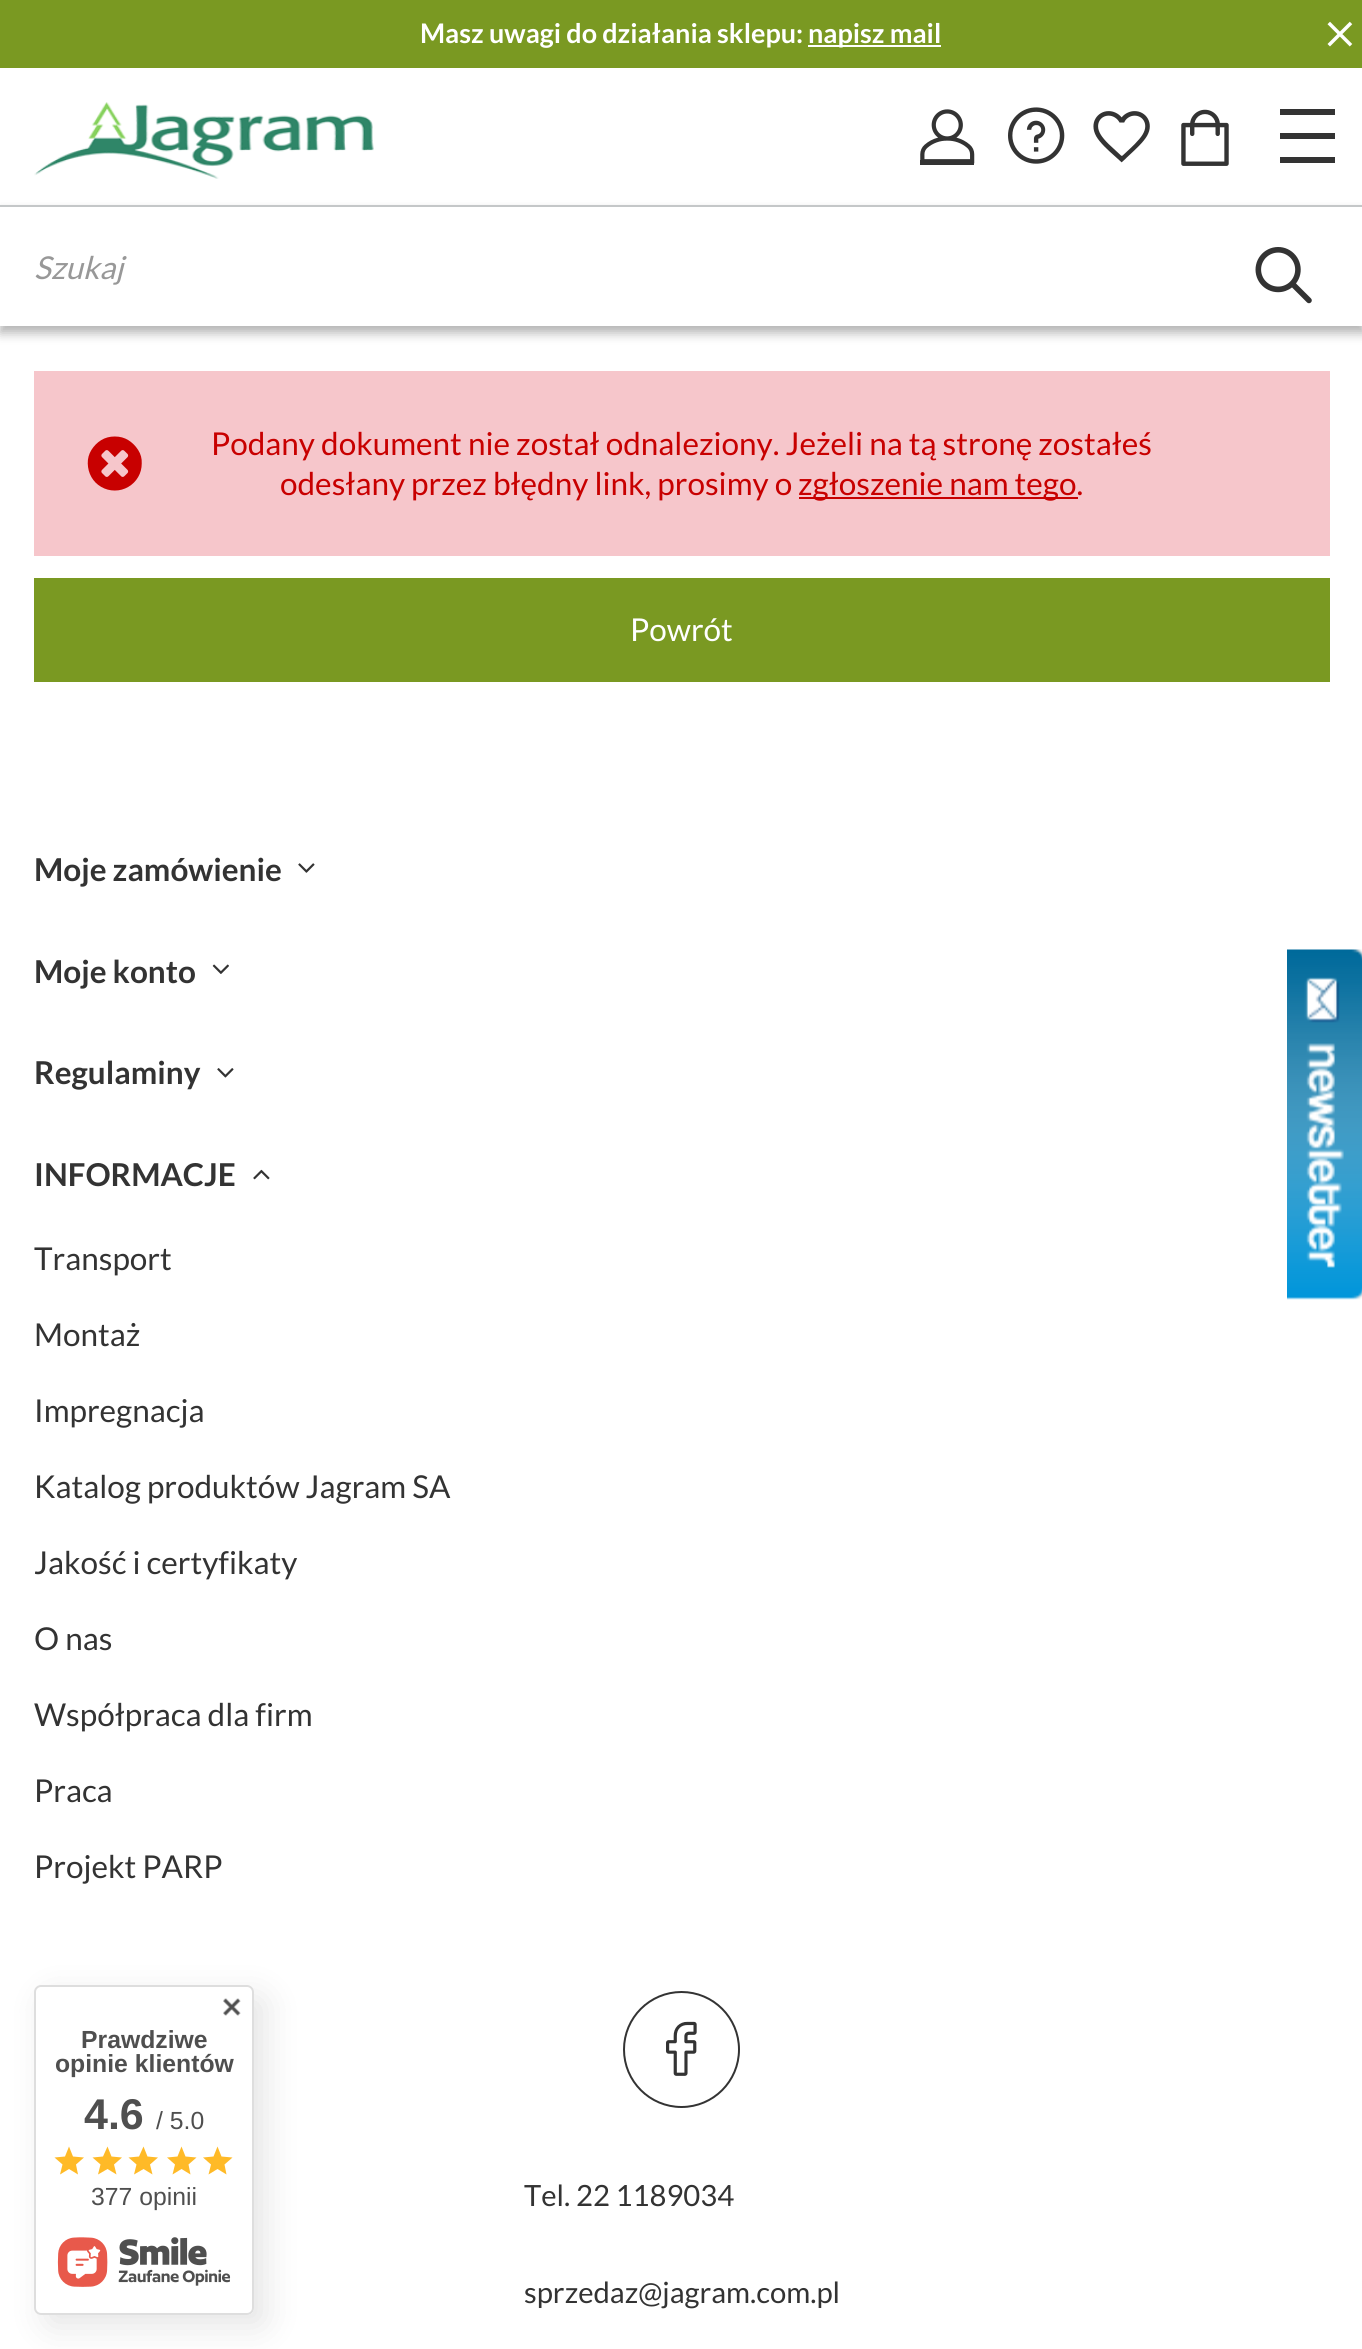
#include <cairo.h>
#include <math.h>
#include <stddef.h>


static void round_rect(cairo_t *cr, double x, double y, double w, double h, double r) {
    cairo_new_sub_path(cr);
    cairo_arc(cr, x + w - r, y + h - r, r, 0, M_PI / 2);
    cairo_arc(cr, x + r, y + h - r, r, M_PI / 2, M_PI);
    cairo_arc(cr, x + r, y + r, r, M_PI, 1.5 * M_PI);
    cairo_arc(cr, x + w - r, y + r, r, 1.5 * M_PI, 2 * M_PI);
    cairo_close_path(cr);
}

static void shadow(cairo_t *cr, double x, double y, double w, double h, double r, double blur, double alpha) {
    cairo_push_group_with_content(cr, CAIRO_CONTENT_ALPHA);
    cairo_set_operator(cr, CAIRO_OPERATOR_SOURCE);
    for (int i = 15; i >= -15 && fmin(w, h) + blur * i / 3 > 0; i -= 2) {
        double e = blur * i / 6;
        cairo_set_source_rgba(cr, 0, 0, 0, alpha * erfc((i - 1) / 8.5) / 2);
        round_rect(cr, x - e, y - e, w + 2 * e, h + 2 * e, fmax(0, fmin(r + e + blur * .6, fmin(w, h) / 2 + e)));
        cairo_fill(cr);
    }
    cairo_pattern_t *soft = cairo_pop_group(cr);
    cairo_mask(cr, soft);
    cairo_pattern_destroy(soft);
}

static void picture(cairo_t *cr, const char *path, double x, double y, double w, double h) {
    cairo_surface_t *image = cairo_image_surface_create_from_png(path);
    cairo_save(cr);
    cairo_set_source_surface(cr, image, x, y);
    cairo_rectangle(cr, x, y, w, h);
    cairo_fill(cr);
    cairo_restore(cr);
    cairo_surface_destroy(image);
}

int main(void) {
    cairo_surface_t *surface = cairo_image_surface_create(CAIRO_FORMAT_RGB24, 1362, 2349);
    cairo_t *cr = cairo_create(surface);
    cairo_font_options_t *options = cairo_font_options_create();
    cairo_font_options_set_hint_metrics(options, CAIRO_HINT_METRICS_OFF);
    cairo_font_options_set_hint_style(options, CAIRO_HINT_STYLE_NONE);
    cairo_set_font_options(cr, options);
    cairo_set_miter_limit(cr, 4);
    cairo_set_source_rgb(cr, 1, 1, 1);
    cairo_paint(cr);
    cairo_set_source_rgb(cr, 0.478, 0.6, 0.133);
    cairo_rectangle(cr, 0, 0, 1362, 68);
    cairo_fill(cr);
    cairo_select_font_face(cr, "Lato", CAIRO_FONT_SLANT_NORMAL, CAIRO_FONT_WEIGHT_BOLD);
    cairo_set_font_size(cr, 27);
    cairo_set_source_rgb(cr, 1, 1, 1);
    cairo_move_to(cr, 420, 43);
    cairo_show_text(cr, "Masz uwagi do działania sklepu:");
    cairo_rectangle(cr, 808, 45, 133, 2);
    cairo_fill(cr);
    cairo_move_to(cr, 808, 43);
    cairo_show_text(cr, "napisz mail");
    picture(cr, "img1.png", 1327, 21, 26, 26);
    picture(cr, "img2.png", 34, 102, 340, 77);
    cairo_set_source_rgb(cr, 0.2, 0.2, 0.2);
    cairo_rectangle(cr, 920, 160, 54, 5);
    cairo_fill(cr);
    picture(cr, "img3.png", 920, 109, 55, 55);
    picture(cr, "img4.png", 1008, 107, 57, 57);
    picture(cr, "img5.png", 1093, 111, 57, 52);
    picture(cr, "img6.png", 1181, 109, 48, 57);
    cairo_new_path(cr);
    cairo_move_to(cr, 1335, 133);
    cairo_line_to(cr, 1280, 133);
    cairo_line_to(cr, 1280, 139);
    cairo_line_to(cr, 1335, 139);
    cairo_close_path(cr);
    cairo_move_to(cr, 1335, 157);
    cairo_line_to(cr, 1280, 157);
    cairo_line_to(cr, 1280, 163);
    cairo_line_to(cr, 1335, 163);
    cairo_close_path(cr);
    cairo_move_to(cr, 1335, 109);
    cairo_line_to(cr, 1280, 109);
    cairo_line_to(cr, 1280, 115);
    cairo_line_to(cr, 1335, 115);
    cairo_close_path(cr);
    cairo_fill(cr);
    cairo_set_source_rgb(cr, 0, 0, 0);
    shadow(cr, 0, 212, 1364, 121, 0, 5.5, 0.3);
    cairo_set_source_rgb(cr, 1, 1, 1);
    cairo_rectangle(cr, 0, 207, 1362, 119);
    cairo_fill(cr);
    cairo_set_source_rgb(cr, 0.769, 0.78, 0.784);
    cairo_rectangle(cr, 0, 205, 1362, 2);
    cairo_fill(cr);
    cairo_select_font_face(cr, "Lato", CAIRO_FONT_SLANT_ITALIC, CAIRO_FONT_WEIGHT_NORMAL);
    cairo_set_font_size(cr, 31.5);
    cairo_set_source_rgb(cr, 0.596, 0.596, 0.596);
    cairo_move_to(cr, 34, 279);
    cairo_show_text(cr, "Szukaj");
    picture(cr, "img7.png", 1255, 247, 57, 57);
    cairo_set_source_rgb(cr, 0.961, 0.776, 0.796);
    cairo_rectangle(cr, 34, 371, 1296, 185);
    cairo_fill(cr);
    picture(cr, "img8.png", 87, 436, 55, 55);
    cairo_select_font_face(cr, "Lato", CAIRO_FONT_SLANT_NORMAL, CAIRO_FONT_WEIGHT_NORMAL);
    cairo_set_source_rgb(cr, 0.784, 0, 0);
    cairo_move_to(cr, 211, 455);
    cairo_show_text(cr, "Podany dokument nie został odnaleziony. Jeżeli na tą stronę zostałeś");
    cairo_move_to(cr, 280, 495);
    cairo_show_text(cr, "odesłany przez błędny link, prosimy o");
    cairo_rectangle(cr, 799, 497, 279, 2);
    cairo_fill(cr);
    cairo_move_to(cr, 798, 495);
    cairo_show_text(cr, "zgłoszenie nam tego.");
    cairo_set_source_rgb(cr, 0.478, 0.6, 0.133);
    cairo_rectangle(cr, 34, 578, 1296, 104);
    cairo_fill(cr);
    cairo_set_source_rgb(cr, 1, 1, 1);
    cairo_move_to(cr, 630, 641);
    cairo_show_text(cr, "Powrót");
    cairo_select_font_face(cr, "Lato", CAIRO_FONT_SLANT_NORMAL, CAIRO_FONT_WEIGHT_BOLD);
    cairo_set_source_rgb(cr, 0.2, 0.2, 0.2);
    cairo_move_to(cr, 34, 881);
    cairo_show_text(cr, "Moje zamówienie");
    picture(cr, "img9.png", 298, 863, 17, 10);
    cairo_move_to(cr, 34, 983);
    cairo_show_text(cr, "Moje konto");
    picture(cr, "img10.png", 212, 964, 17, 10);
    cairo_move_to(cr, 34, 1084);
    cairo_show_text(cr, "Regulaminy");
    picture(cr, "img11.png", 217, 1068, 17, 10);
    cairo_move_to(cr, 34, 1186);
    cairo_show_text(cr, "INFORMACJE");
    picture(cr, "img12.png", 253, 1169, 17, 11);
    cairo_select_font_face(cr, "Lato", CAIRO_FONT_SLANT_NORMAL, CAIRO_FONT_WEIGHT_NORMAL);
    cairo_move_to(cr, 34, 1270);
    cairo_show_text(cr, "Transport");
    cairo_move_to(cr, 34, 1346);
    cairo_show_text(cr, "Montaż");
    cairo_move_to(cr, 34, 1422);
    cairo_show_text(cr, "Impregnacja");
    cairo_move_to(cr, 34, 1498);
    cairo_show_text(cr, "Katalog produktów Jagram SA");
    cairo_move_to(cr, 34, 1574);
    cairo_show_text(cr, "Jakość i certyfikaty");
    cairo_move_to(cr, 34, 1650);
    cairo_show_text(cr, "O nas");
    cairo_move_to(cr, 34, 1726);
    cairo_show_text(cr, "Współpraca dla firm");
    cairo_move_to(cr, 34, 1802);
    cairo_show_text(cr, "Praca");
    cairo_move_to(cr, 34, 1878);
    cairo_show_text(cr, "Projekt PARP");
    cairo_new_path(cr);
    cairo_arc(cr, 681.5, 2049.5, 57.5, 0, 2 * M_PI);
    cairo_stroke(cr);
    picture(cr, "img13.png", 666, 2021, 31, 55);
    cairo_set_font_size(cr, 29.25);
    cairo_move_to(cr, 524, 2206);
    cairo_show_text(cr, "Tel. 22 1189034");
    cairo_move_to(cr, 524, 2303);
    cairo_show_text(cr, "sprzedaz@jagram.com.pl");
    picture(cr, "img14.png", 1287, 949, 75, 351);
    cairo_save(cr);
    cairo_set_fill_rule(cr, CAIRO_FILL_RULE_EVEN_ODD);
    cairo_new_path(cr);
    cairo_move_to(cr, 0, 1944);
    cairo_line_to(cr, 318, 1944);
    cairo_line_to(cr, 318, 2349);
    cairo_line_to(cr, 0, 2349);
    cairo_close_path(cr);
    cairo_move_to(cr, 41, 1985);
    cairo_line_to(cr, 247, 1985);
    cairo_curve_to(cr, 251, 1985, 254, 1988, 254, 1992);
    cairo_line_to(cr, 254, 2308);
    cairo_curve_to(cr, 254, 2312, 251, 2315, 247, 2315);
    cairo_line_to(cr, 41, 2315);
    cairo_curve_to(cr, 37, 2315, 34, 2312, 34, 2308);
    cairo_line_to(cr, 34, 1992);
    cairo_curve_to(cr, 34, 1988, 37, 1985, 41, 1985);
    cairo_close_path(cr);
    cairo_clip(cr);
    cairo_set_source_rgb(cr, 0, 0, 0);
    shadow(cr, 45, 1996, 221, 331, 7, 17, 0.1);
    cairo_restore(cr);
    round_rect(cr, 35, 1986, 218, 328, 6);
    cairo_set_source_rgb(cr, 0.871, 0.871, 0.871);
    cairo_stroke(cr);
    picture(cr, "img15.png", 223, 1998, 18, 18);
    cairo_select_font_face(cr, "Liberation Sans", CAIRO_FONT_SLANT_NORMAL, CAIRO_FONT_WEIGHT_BOLD);
    cairo_set_font_size(cr, 24.75);
    cairo_set_source_rgb(cr, 0.31, 0.31, 0.31);
    cairo_move_to(cr, 81, 2048);
    cairo_show_text(cr, "Prawdziwe");
    cairo_move_to(cr, 55, 2072);
    cairo_show_text(cr, "opinie klientów");
    cairo_set_font_size(cr, 43);
    cairo_move_to(cr, 84, 2129);
    cairo_show_text(cr, "4.6");
    cairo_select_font_face(cr, "Liberation Sans", CAIRO_FONT_SLANT_NORMAL, CAIRO_FONT_WEIGHT_NORMAL);
    cairo_set_font_size(cr, 24.75);
    cairo_move_to(cr, 156, 2129);
    cairo_show_text(cr, "/ 5.0");
    cairo_set_source_rgb(cr, 1, 0.729, 0.153);
    cairo_new_path(cr);
    cairo_move_to(cr, 60, 2174.5);
    cairo_line_to(cr, 62.5, 2164.5);
    cairo_line_to(cr, 54.5, 2157.5);
    cairo_line_to(cr, 65, 2156.5);
    cairo_line_to(cr, 69, 2146.5);
    cairo_line_to(cr, 73, 2156.5);
    cairo_line_to(cr, 84, 2157.5);
    cairo_line_to(cr, 76, 2164.5);
    cairo_line_to(cr, 78, 2174.5);
    cairo_line_to(cr, 69, 2169);
    cairo_close_path(cr);
    cairo_fill(cr);
    cairo_new_path(cr);
    cairo_move_to(cr, 98, 2174.5);
    cairo_line_to(cr, 100.5, 2164.5);
    cairo_line_to(cr, 92.5, 2157.5);
    cairo_line_to(cr, 103, 2156.5);
    cairo_line_to(cr, 107.5, 2146.5);
    cairo_line_to(cr, 111.5, 2156.5);
    cairo_line_to(cr, 122, 2157.5);
    cairo_line_to(cr, 114, 2164.5);
    cairo_line_to(cr, 116.5, 2174.5);
    cairo_line_to(cr, 107.5, 2169);
    cairo_close_path(cr);
    cairo_fill(cr);
    cairo_new_path(cr);
    cairo_move_to(cr, 134, 2174.5);
    cairo_line_to(cr, 136.5, 2164.5);
    cairo_line_to(cr, 128.5, 2157.5);
    cairo_line_to(cr, 139, 2156.5);
    cairo_line_to(cr, 143.5, 2146.5);
    cairo_line_to(cr, 147.5, 2156.5);
    cairo_line_to(cr, 158, 2157.5);
    cairo_line_to(cr, 150, 2164.5);
    cairo_line_to(cr, 152.5, 2174.5);
    cairo_line_to(cr, 143.5, 2169);
    cairo_close_path(cr);
    cairo_fill(cr);
    cairo_new_path(cr);
    cairo_move_to(cr, 172.5, 2174.5);
    cairo_line_to(cr, 175, 2164.5);
    cairo_line_to(cr, 167, 2157.5);
    cairo_line_to(cr, 177.5, 2156.5);
    cairo_line_to(cr, 181.5, 2146.5);
    cairo_line_to(cr, 185.5, 2156.5);
    cairo_line_to(cr, 196.5, 2157.5);
    cairo_line_to(cr, 188.5, 2164.5);
    cairo_line_to(cr, 190.5, 2174.5);
    cairo_line_to(cr, 181.5, 2169);
    cairo_close_path(cr);
    cairo_fill(cr);
    cairo_new_path(cr);
    cairo_move_to(cr, 208.5, 2174.5);
    cairo_line_to(cr, 211, 2164.5);
    cairo_line_to(cr, 203, 2157.5);
    cairo_line_to(cr, 213.5, 2156.5);
    cairo_line_to(cr, 217.5, 2146.5);
    cairo_line_to(cr, 221.5, 2156.5);
    cairo_line_to(cr, 232.5, 2157.5);
    cairo_line_to(cr, 224.5, 2164.5);
    cairo_line_to(cr, 226.5, 2174.5);
    cairo_line_to(cr, 217.5, 2169);
    cairo_close_path(cr);
    cairo_fill(cr);
    cairo_set_source_rgb(cr, 0.31, 0.31, 0.31);
    cairo_move_to(cr, 91, 2205);
    cairo_show_text(cr, "377 opinii");
    picture(cr, "img16.png", 57, 2237, 174, 50);
    cairo_surface_write_to_png(surface, "page.png");
    cairo_font_options_destroy(options);
    cairo_destroy(cr);
    cairo_surface_destroy(surface);
    return 0;
}
